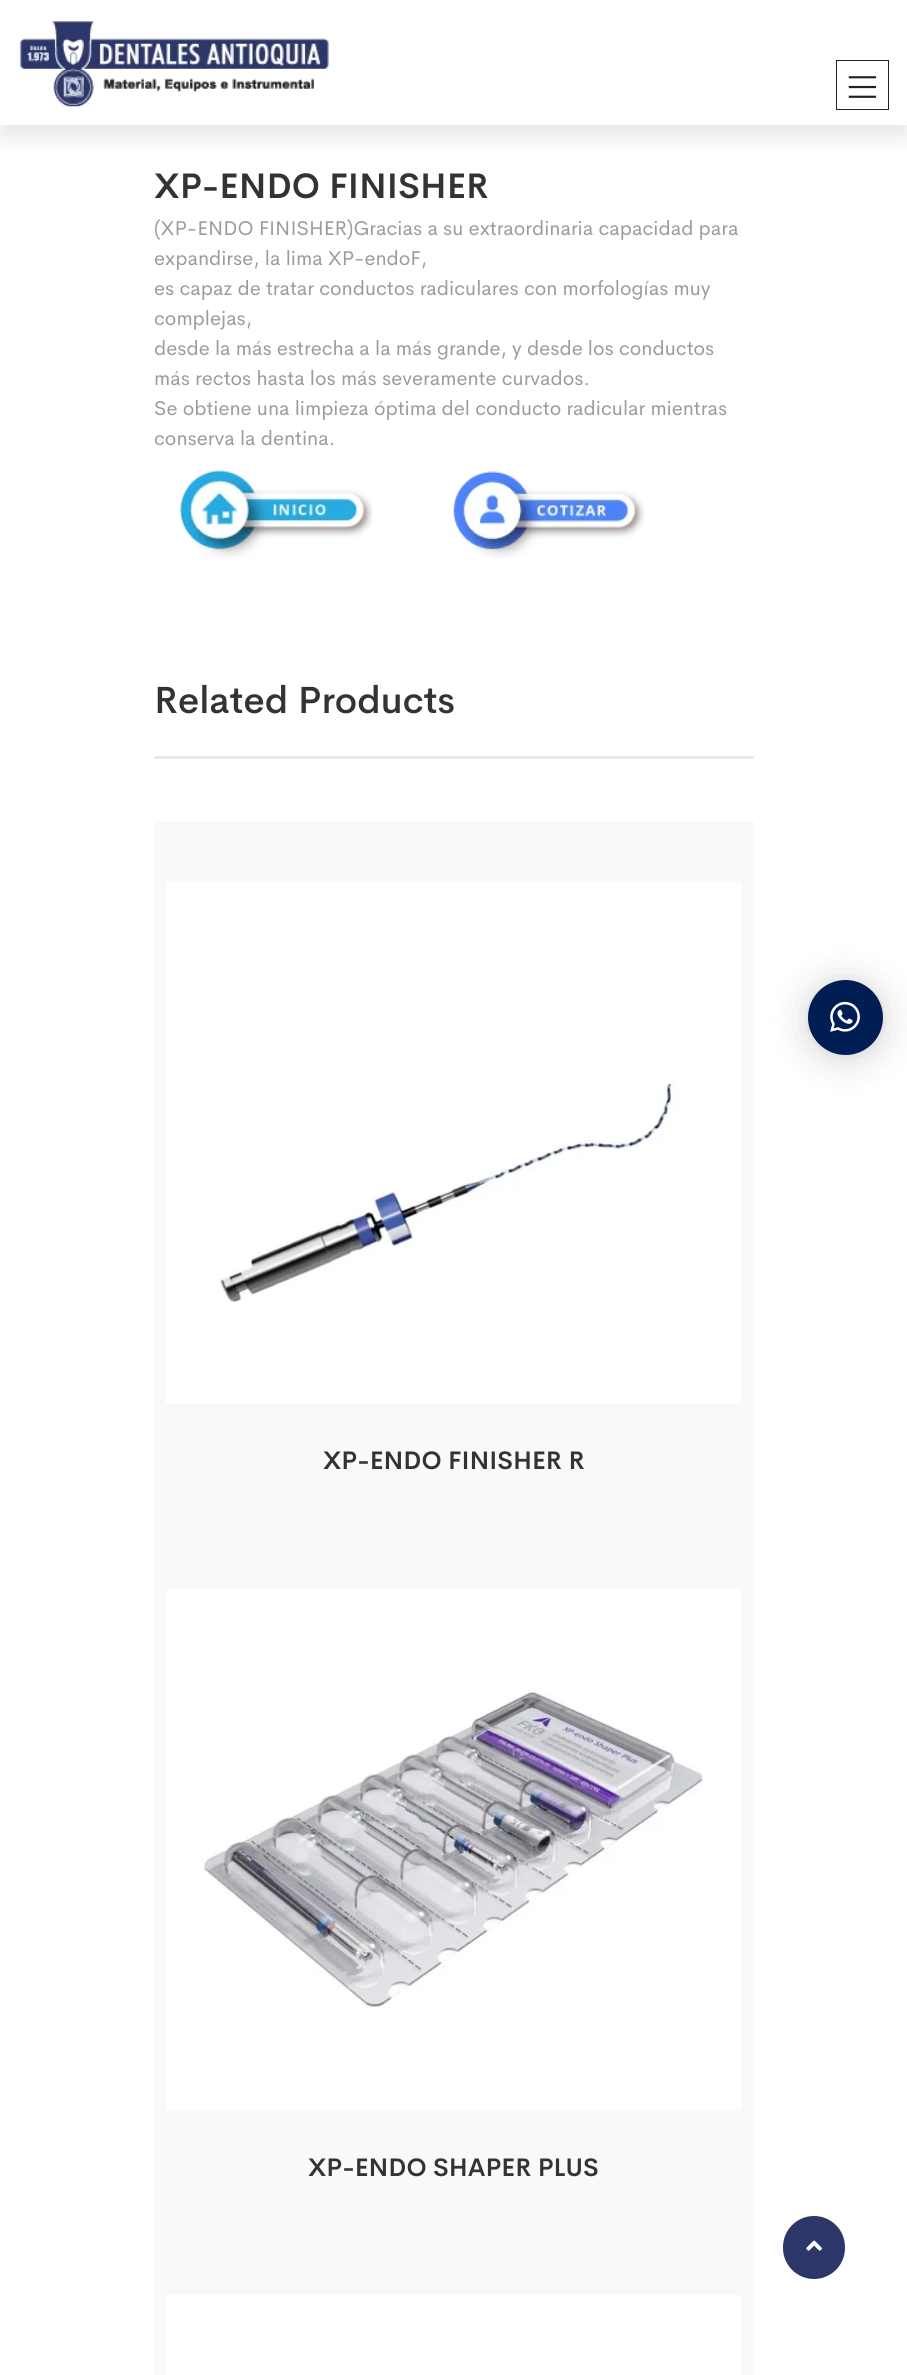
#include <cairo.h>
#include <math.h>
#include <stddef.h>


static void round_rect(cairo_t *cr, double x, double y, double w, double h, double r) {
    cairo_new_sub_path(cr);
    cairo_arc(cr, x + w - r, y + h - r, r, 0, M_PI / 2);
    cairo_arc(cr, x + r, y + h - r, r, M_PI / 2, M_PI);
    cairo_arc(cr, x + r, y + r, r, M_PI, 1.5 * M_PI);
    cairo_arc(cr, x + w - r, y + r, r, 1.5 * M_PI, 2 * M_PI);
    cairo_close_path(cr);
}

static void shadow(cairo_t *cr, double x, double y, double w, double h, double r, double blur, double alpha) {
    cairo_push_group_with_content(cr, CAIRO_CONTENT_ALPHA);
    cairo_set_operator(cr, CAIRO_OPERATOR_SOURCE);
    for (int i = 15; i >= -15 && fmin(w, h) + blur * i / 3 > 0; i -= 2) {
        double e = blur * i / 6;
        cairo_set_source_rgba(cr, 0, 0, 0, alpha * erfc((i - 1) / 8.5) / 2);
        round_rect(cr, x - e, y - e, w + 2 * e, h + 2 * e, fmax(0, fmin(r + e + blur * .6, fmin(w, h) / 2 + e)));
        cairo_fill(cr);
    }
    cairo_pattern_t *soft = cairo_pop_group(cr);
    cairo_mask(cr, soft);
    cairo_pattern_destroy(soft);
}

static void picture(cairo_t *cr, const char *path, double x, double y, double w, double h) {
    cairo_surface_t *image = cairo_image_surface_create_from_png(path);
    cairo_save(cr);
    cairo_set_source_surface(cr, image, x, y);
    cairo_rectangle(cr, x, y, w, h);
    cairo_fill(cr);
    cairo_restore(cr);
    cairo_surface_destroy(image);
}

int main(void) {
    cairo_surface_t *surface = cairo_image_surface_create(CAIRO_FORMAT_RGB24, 907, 2375);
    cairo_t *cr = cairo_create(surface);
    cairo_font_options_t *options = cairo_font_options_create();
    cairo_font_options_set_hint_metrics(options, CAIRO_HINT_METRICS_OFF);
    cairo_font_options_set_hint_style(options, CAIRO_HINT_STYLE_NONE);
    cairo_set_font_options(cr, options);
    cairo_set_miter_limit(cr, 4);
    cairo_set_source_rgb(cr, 1, 1, 1);
    cairo_paint(cr);
    cairo_set_source_rgb(cr, 0.098, 0.098, 0.098);
    shadow(cr, 0, 13, 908, 125, 0, 9.5, 0.1);
    cairo_set_source_rgb(cr, 1, 1, 1);
    cairo_rectangle(cr, 0, 2, 907, 123);
    cairo_fill(cr);
    picture(cr, "img1.png", 19, 21, 310, 86);
    cairo_rectangle(cr, 836.5, 60.5, 52, 49);
    cairo_set_source_rgb(cr, 0.133, 0.133, 0.133);
    cairo_set_line_width(cr, 1);
    cairo_stroke(cr);
    picture(cr, "img2.png", 848, 76, 29, 22);
    cairo_select_font_face(cr, "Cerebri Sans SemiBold", CAIRO_FONT_SLANT_NORMAL, CAIRO_FONT_WEIGHT_NORMAL);
    cairo_set_font_size(cr, 35);
    cairo_set_source_rgb(cr, 0.2, 0.2, 0.2);
    cairo_move_to(cr, 154, 198);
    cairo_show_text(cr, "XP-ENDO FINISHER");
    cairo_select_font_face(cr, "Cerebri Sans", CAIRO_FONT_SLANT_NORMAL, CAIRO_FONT_WEIGHT_NORMAL);
    cairo_set_font_size(cr, 20);
    cairo_set_source_rgb(cr, 0.608, 0.608, 0.608);
    cairo_move_to(cr, 154, 235);
    cairo_show_text(cr, "(XP-ENDO FINISHER)Gracias a su extraordinaria capacidad para");
    cairo_move_to(cr, 154, 265);
    cairo_show_text(cr, "expandirse, la lima XP-endoF,");
    cairo_move_to(cr, 154, 295);
    cairo_show_text(cr, "es capaz de tratar conductos radiculares con morfologías muy");
    cairo_move_to(cr, 154, 325);
    cairo_show_text(cr, "complejas,");
    cairo_move_to(cr, 154, 355);
    cairo_show_text(cr, "desde la más estrecha a la más grande, y desde los conductos");
    cairo_move_to(cr, 154, 385);
    cairo_show_text(cr, "más rectos hasta los más severamente curvados.");
    cairo_move_to(cr, 154, 415);
    cairo_show_text(cr, "Se obtiene una limpieza óptima del conducto radicular mientras");
    cairo_move_to(cr, 154, 445);
    cairo_show_text(cr, "conserva la dentina.");
    picture(cr, "img3.png", 179, 470, 194, 88);
    picture(cr, "img4.png", 453, 471, 192, 87);
    cairo_set_source_rgb(cr, 0.914, 0.914, 0.914);
    cairo_rectangle(cr, 154, 756, 600, 3);
    cairo_fill(cr);
    cairo_select_font_face(cr, "Cerebri Sans Medium", CAIRO_FONT_SLANT_NORMAL, CAIRO_FONT_WEIGHT_NORMAL);
    cairo_set_font_size(cr, 37.5);
    cairo_set_source_rgb(cr, 0.2, 0.2, 0.2);
    cairo_move_to(cr, 154, 713);
    cairo_show_text(cr, "Related Products");
    cairo_set_source_rgb(cr, 0.973, 0.973, 0.973);
    cairo_rectangle(cr, 154, 821, 600, 1554);
    cairo_fill(cr);
    picture(cr, "img5.png", 166, 882, 575, 522);
    cairo_select_font_face(cr, "Cerebri Sans SemiBold", CAIRO_FONT_SLANT_NORMAL, CAIRO_FONT_WEIGHT_NORMAL);
    cairo_set_font_size(cr, 25);
    cairo_set_source_rgb(cr, 0.2, 0.2, 0.2);
    cairo_move_to(cr, 323, 1469);
    cairo_show_text(cr, "XP-ENDO FINISHER R");
    picture(cr, "img6.png", 166, 1589, 575, 521);
    cairo_move_to(cr, 308, 2176);
    cairo_show_text(cr, "XP-ENDO SHAPER PLUS");
    cairo_set_source_rgb(cr, 1, 1, 1);
    cairo_rectangle(cr, 166, 2295, 575, 80);
    cairo_fill(cr);
    cairo_set_source_rgb(cr, 0, 0, 0);
    shadow(cr, 808, 983, 75, 75, 37.5, 20, 0.16);
    shadow(cr, 808, 981, 75, 75, 37.5, 4, 0.06);
    cairo_set_source_rgb(cr, 0, 0.114, 0.329);
    cairo_arc(cr, 845.5, 1017.5, 37.5, 0, 2 * M_PI);
    cairo_fill(cr);
    picture(cr, "img7.png", 830, 1001, 30, 31);
    cairo_set_source_rgb(cr, 0.176, 0.212, 0.412);
    round_rect(cr, 783, 2216, 62, 63, 31);
    cairo_fill(cr);
    picture(cr, "img8.png", 806, 2240, 16, 11);
    cairo_surface_write_to_png(surface, "page.png");
    cairo_font_options_destroy(options);
    cairo_destroy(cr);
    cairo_surface_destroy(surface);
    return 0;
}
